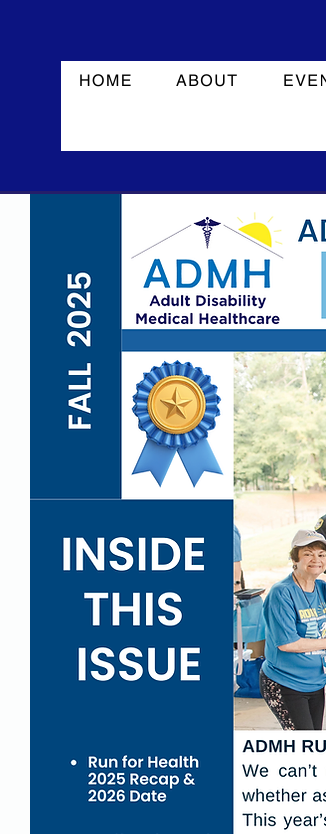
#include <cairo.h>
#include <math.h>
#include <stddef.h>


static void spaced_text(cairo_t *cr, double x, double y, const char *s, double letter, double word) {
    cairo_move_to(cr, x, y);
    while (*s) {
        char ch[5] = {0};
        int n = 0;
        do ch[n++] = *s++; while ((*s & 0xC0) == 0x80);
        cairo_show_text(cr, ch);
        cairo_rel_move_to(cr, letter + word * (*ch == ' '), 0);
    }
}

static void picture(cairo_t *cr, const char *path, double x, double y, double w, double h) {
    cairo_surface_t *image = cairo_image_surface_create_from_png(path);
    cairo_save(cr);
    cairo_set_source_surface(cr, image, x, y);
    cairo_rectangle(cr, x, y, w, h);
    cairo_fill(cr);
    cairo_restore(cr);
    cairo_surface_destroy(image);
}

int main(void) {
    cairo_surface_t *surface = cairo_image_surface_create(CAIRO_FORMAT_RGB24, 326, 834);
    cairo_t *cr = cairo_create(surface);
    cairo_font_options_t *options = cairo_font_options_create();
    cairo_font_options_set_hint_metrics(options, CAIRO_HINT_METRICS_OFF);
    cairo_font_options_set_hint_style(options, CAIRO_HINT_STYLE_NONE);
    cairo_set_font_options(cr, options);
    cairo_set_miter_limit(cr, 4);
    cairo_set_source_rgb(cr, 0.988, 0.992, 0.992);
    cairo_paint(cr);
    cairo_set_source_rgb(cr, 0.047, 0.082, 0.506);
    cairo_rectangle(cr, 0, 0, 326, 191);
    cairo_fill(cr);
    cairo_set_source_rgb(cr, 0.145, 0.118, 0.416);
    cairo_rectangle(cr, 0, 191, 326, 3);
    cairo_fill(cr);
    cairo_set_source_rgb(cr, 1, 1, 1);
    cairo_rectangle(cr, 61, 61, 265, 90);
    cairo_fill(cr);
    cairo_select_font_face(cr, "helvetica", CAIRO_FONT_SLANT_NORMAL, CAIRO_FONT_WEIGHT_NORMAL);
    cairo_set_font_size(cr, 16);
    cairo_set_source_rgb(cr, 0, 0, 0);
    spaced_text(cr, 79, 86, "HOME", 1.5, 0);
    spaced_text(cr, 176, 86, "ABOUT", 1.5, 0);
    spaced_text(cr, 283, 86, "EVEN", 1.5, 0);
    picture(cr, "img1.png", 30, 194, 296, 640);
    cairo_surface_write_to_png(surface, "page.png");
    cairo_font_options_destroy(options);
    cairo_destroy(cr);
    cairo_surface_destroy(surface);
    return 0;
}
